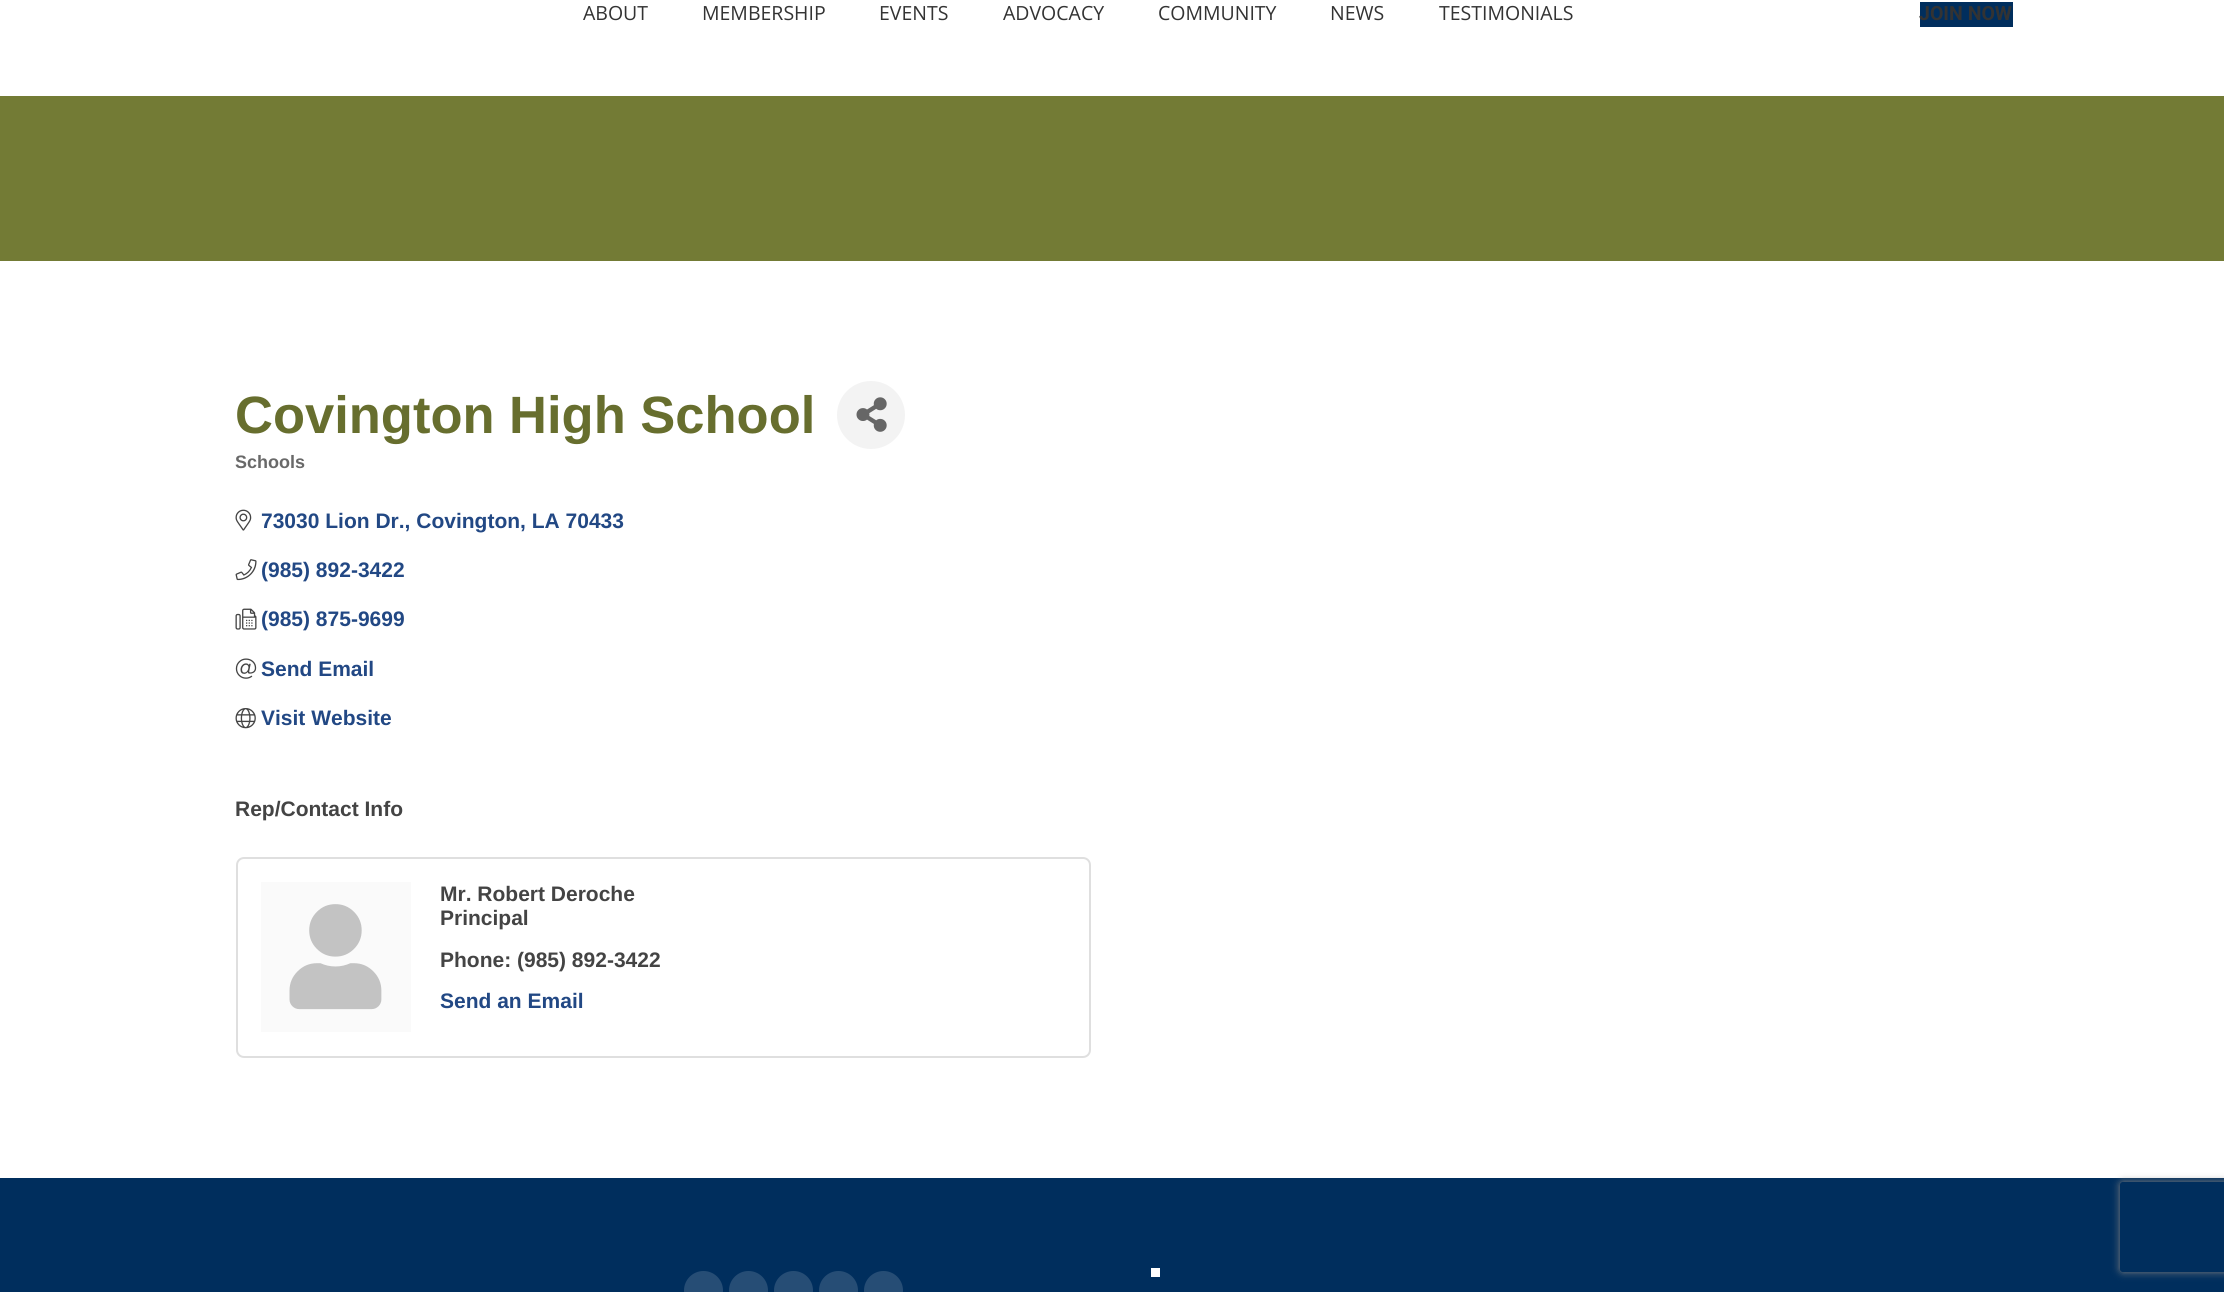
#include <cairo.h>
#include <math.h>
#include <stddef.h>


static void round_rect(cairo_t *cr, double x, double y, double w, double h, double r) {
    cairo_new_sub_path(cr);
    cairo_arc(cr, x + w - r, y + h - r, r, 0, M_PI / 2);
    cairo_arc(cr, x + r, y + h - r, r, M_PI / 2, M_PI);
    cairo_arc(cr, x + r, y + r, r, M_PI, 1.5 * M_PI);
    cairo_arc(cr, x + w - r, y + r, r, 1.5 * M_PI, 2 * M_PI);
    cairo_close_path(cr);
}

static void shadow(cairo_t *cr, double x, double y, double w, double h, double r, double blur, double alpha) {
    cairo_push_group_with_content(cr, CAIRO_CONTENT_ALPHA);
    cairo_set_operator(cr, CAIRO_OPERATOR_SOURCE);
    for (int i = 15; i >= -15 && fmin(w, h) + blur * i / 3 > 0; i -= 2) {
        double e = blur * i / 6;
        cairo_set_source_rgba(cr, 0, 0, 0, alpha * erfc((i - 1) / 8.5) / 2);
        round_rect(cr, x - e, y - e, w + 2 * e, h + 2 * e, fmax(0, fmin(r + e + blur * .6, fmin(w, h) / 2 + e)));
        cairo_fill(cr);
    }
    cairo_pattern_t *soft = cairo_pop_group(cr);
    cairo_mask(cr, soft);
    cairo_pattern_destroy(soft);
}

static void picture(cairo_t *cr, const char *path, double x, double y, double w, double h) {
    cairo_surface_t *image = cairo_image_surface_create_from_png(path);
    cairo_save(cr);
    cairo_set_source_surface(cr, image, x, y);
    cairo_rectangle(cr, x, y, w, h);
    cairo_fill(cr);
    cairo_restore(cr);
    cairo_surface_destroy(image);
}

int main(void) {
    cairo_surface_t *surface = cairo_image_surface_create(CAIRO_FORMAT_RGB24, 2224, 1292);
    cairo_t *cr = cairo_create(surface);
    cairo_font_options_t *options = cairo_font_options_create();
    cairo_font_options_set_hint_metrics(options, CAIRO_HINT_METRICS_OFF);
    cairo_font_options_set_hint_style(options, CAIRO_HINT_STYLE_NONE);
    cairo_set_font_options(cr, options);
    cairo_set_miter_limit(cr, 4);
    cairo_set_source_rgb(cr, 1, 1, 1);
    cairo_paint(cr);
    cairo_select_font_face(cr, "Open Sans", CAIRO_FONT_SLANT_NORMAL, CAIRO_FONT_WEIGHT_NORMAL);
    cairo_set_font_size(cr, 19.5);
    cairo_set_source_rgb(cr, 0.2, 0.2, 0.2);
    cairo_move_to(cr, 583, 20);
    cairo_show_text(cr, "ABOUT");
    cairo_move_to(cr, 702, 20);
    cairo_show_text(cr, "MEMBERSHIP");
    cairo_move_to(cr, 879, 20);
    cairo_show_text(cr, "EVENTS");
    cairo_move_to(cr, 1003, 20);
    cairo_show_text(cr, "ADVOCACY");
    cairo_move_to(cr, 1158, 20);
    cairo_show_text(cr, "COMMUNITY");
    cairo_move_to(cr, 1330, 20);
    cairo_show_text(cr, "NEWS");
    cairo_move_to(cr, 1439, 20);
    cairo_show_text(cr, "TESTIMONIALS");
    cairo_set_source_rgb(cr, 0, 0.18, 0.365);
    cairo_rectangle(cr, 1920, 2, 93, 25);
    cairo_fill(cr);
    cairo_select_font_face(cr, "Roboto", CAIRO_FONT_SLANT_NORMAL, CAIRO_FONT_WEIGHT_BOLD);
    cairo_set_source_rgb(cr, 0.2, 0.2, 0.2);
    cairo_move_to(cr, 1919, 20);
    cairo_show_text(cr, "JOIN NOW");
    cairo_set_source_rgb(cr, 0.451, 0.482, 0.208);
    cairo_rectangle(cr, 0, 96, 2224, 165);
    cairo_fill(cr);
    cairo_select_font_face(cr, "Liberation Sans", CAIRO_FONT_SLANT_NORMAL, CAIRO_FONT_WEIGHT_BOLD);
    cairo_set_font_size(cr, 52.5);
    cairo_set_source_rgb(cr, 0.404, 0.431, 0.18);
    cairo_move_to(cr, 235, 433);
    cairo_show_text(cr, "Covington High School");
    cairo_set_source_rgb(cr, 0.953, 0.953, 0.953);
    cairo_new_path(cr);
    cairo_arc(cr, 871, 415, 34, 0, 2 * M_PI);
    cairo_fill(cr);
    picture(cr, "img1.png", 856, 397, 31, 35);
    cairo_set_font_size(cr, 18);
    cairo_set_source_rgb(cr, 0.412, 0.412, 0.412);
    cairo_move_to(cr, 235, 468);
    cairo_show_text(cr, "Schools");
    picture(cr, "img2.png", 235, 509, 17, 22);
    cairo_set_font_size(cr, 21);
    cairo_set_source_rgb(cr, 0.133, 0.282, 0.518);
    cairo_move_to(cr, 261, 528);
    cairo_show_text(cr, "73030 Lion Dr., Covington, LA 70433");
    picture(cr, "img3.png", 235, 559, 22, 22);
    cairo_move_to(cr, 261, 577);
    cairo_show_text(cr, "(985) 892-3422");
    picture(cr, "img4.png", 235, 608, 22, 22);
    cairo_move_to(cr, 261, 626);
    cairo_show_text(cr, "(985) 875-9699");
    picture(cr, "img5.png", 235, 658, 22, 21);
    cairo_move_to(cr, 261, 676);
    cairo_show_text(cr, "Send Email");
    picture(cr, "img6.png", 235, 708, 21, 21);
    cairo_move_to(cr, 261, 725);
    cairo_show_text(cr, "Visit Website");
    cairo_set_source_rgb(cr, 0.267, 0.267, 0.267);
    cairo_move_to(cr, 235, 816);
    cairo_show_text(cr, "Rep/Contact Info");
    round_rect(cr, 237, 858, 853, 199, 7);
    cairo_set_source_rgb(cr, 0.875, 0.875, 0.875);
    cairo_stroke(cr);
    cairo_set_source_rgb(cr, 0.98, 0.98, 0.98);
    cairo_rectangle(cr, 261, 882, 150, 150);
    cairo_fill(cr);
    picture(cr, "img7.png", 289, 904, 93, 106);
    cairo_set_source_rgb(cr, 0.267, 0.267, 0.267);
    cairo_move_to(cr, 440, 901);
    cairo_show_text(cr, "Mr. Robert Deroche");
    cairo_move_to(cr, 440, 925);
    cairo_show_text(cr, "Principal");
    cairo_move_to(cr, 440, 967);
    cairo_show_text(cr, "Phone: (985) 892-3422");
    cairo_set_source_rgb(cr, 0.133, 0.282, 0.518);
    cairo_move_to(cr, 440, 1008);
    cairo_show_text(cr, "Send an Email");
    cairo_set_source_rgb(cr, 0, 0.18, 0.365);
    cairo_rectangle(cr, 0, 1178, 2224, 114);
    cairo_fill(cr);
    cairo_set_source_rgb(cr, 0.149, 0.302, 0.459);
    cairo_arc(cr, 703.5, 1290.5, 19.5, 0, 2 * M_PI);
    cairo_fill(cr);
    cairo_arc(cr, 748.5, 1290.5, 19.5, 0, 2 * M_PI);
    cairo_fill(cr);
    cairo_arc(cr, 793.5, 1290.5, 19.5, 0, 2 * M_PI);
    cairo_fill(cr);
    cairo_arc(cr, 838.5, 1290.5, 19.5, 0, 2 * M_PI);
    cairo_fill(cr);
    cairo_arc(cr, 883.5, 1290.5, 19.5, 0, 2 * M_PI);
    cairo_fill(cr);
    cairo_set_source_rgb(cr, 1, 1, 1);
    cairo_rectangle(cr, 1151, 1268, 9, 9);
    cairo_fill(cr);
    cairo_save(cr);
    cairo_set_fill_rule(cr, CAIRO_FILL_RULE_EVEN_ODD);
    cairo_new_path(cr);
    cairo_move_to(cr, 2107, 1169);
    cairo_line_to(cr, 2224, 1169);
    cairo_line_to(cr, 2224, 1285);
    cairo_line_to(cr, 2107, 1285);
    cairo_close_path(cr);
    cairo_move_to(cr, 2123, 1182);
    cairo_line_to(cr, 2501, 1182);
    cairo_curve_to(cr, 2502.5, 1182, 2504, 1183.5, 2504, 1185);
    cairo_line_to(cr, 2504, 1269);
    cairo_curve_to(cr, 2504, 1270.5, 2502.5, 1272, 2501, 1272);
    cairo_line_to(cr, 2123, 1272);
    cairo_curve_to(cr, 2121.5, 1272, 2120, 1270.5, 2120, 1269);
    cairo_line_to(cr, 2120, 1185);
    cairo_curve_to(cr, 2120, 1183.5, 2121.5, 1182, 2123, 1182);
    cairo_close_path(cr);
    cairo_clip(cr);
    cairo_set_source_rgb(cr, 0.502, 0.502, 0.502);
    shadow(cr, 2120, 1182, 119, 90, 3, 4, 1);
    cairo_restore(cr);
    cairo_surface_write_to_png(surface, "page.png");
    cairo_font_options_destroy(options);
    cairo_destroy(cr);
    cairo_surface_destroy(surface);
    return 0;
}
